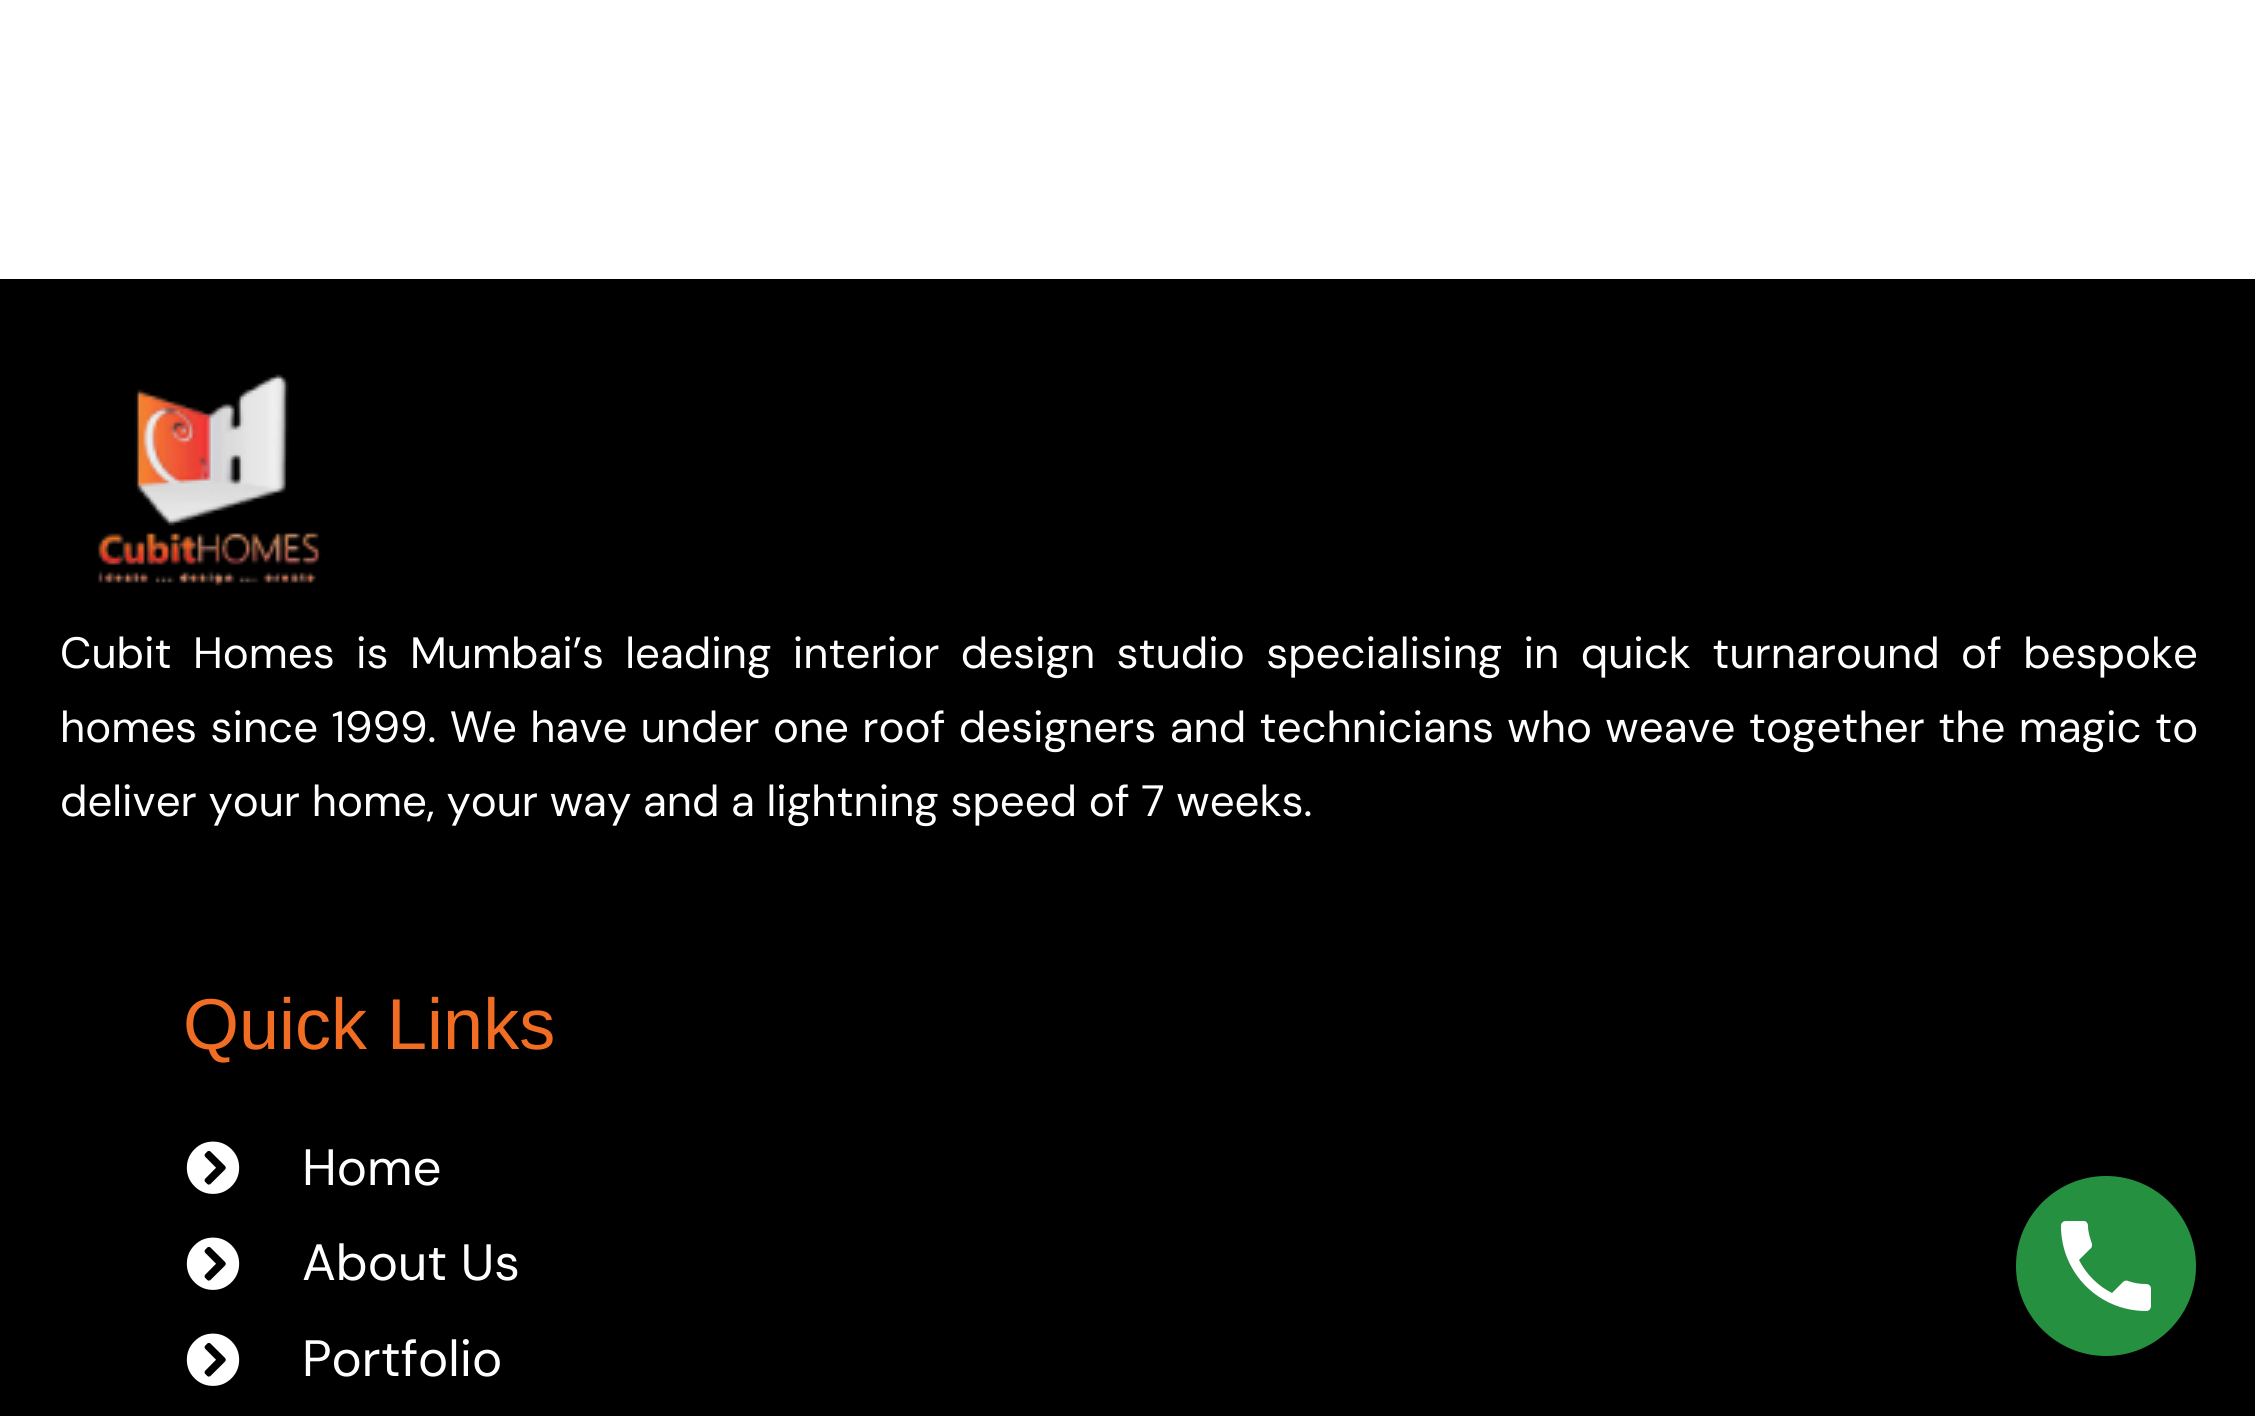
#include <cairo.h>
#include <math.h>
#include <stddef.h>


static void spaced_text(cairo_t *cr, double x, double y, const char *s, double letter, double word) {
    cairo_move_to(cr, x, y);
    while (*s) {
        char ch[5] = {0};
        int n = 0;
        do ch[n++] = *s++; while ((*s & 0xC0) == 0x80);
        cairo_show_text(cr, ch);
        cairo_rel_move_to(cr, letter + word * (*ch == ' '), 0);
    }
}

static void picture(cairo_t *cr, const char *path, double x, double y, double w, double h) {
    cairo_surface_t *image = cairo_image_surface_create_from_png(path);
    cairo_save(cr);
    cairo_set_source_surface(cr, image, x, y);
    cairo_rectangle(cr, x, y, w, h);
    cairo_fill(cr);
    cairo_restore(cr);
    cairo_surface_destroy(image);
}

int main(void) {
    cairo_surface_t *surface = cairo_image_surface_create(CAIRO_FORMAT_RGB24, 2255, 1416);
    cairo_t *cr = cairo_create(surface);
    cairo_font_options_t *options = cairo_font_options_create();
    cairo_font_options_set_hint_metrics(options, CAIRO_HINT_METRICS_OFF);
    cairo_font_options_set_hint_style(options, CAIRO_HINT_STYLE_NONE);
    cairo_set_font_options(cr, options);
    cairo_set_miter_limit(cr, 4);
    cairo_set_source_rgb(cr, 1, 1, 1);
    cairo_paint(cr);
    cairo_set_source_rgb(cr, 0, 0, 0);
    cairo_rectangle(cr, 0, 279, 2255, 1137);
    cairo_fill(cr);
    picture(cr, "img1.png", 98, 374, 223, 212);
    cairo_select_font_face(cr, "DM Sans", CAIRO_FONT_SLANT_NORMAL, CAIRO_FONT_WEIGHT_NORMAL);
    cairo_set_font_size(cr, 43.8);
    cairo_set_source_rgb(cr, 1, 1, 1);
    spaced_text(cr, 60, 668, "Cubit Homes is Mumbai’s leading interior design studio specialising in quick turnaround of bespoke", 0, 9.75);
    spaced_text(cr, 60, 742, "homes since 1999. We have under one roof designers and technicians who weave together the magic to", 0, 1.75);
    cairo_move_to(cr, 60, 816);
    cairo_show_text(cr, "deliver your home, your way and a lightning speed of 7 weeks.");
    cairo_select_font_face(cr, "Liberation Sans", CAIRO_FONT_SLANT_NORMAL, CAIRO_FONT_WEIGHT_NORMAL);
    cairo_set_font_size(cr, 72);
    cairo_set_source_rgb(cr, 0.941, 0.427, 0.137);
    cairo_move_to(cr, 183, 1049);
    cairo_show_text(cr, "Quick Links");
    picture(cr, "img2.png", 186, 1141, 54, 53);
    cairo_select_font_face(cr, "DM Sans", CAIRO_FONT_SLANT_NORMAL, CAIRO_FONT_WEIGHT_NORMAL);
    cairo_set_font_size(cr, 51);
    cairo_set_source_rgb(cr, 1, 1, 1);
    cairo_move_to(cr, 302, 1185);
    cairo_show_text(cr, "Home");
    picture(cr, "img2.png", 186, 1237, 54, 53);
    cairo_move_to(cr, 302, 1280);
    cairo_show_text(cr, "About Us");
    picture(cr, "img2.png", 186, 1333, 54, 53);
    cairo_move_to(cr, 302, 1376);
    cairo_show_text(cr, "Portfolio");
    cairo_set_source_rgb(cr, 0.149, 0.565, 0.255);
    cairo_new_path(cr);
    cairo_arc(cr, 2106, 1266, 90, 0, 2 * M_PI);
    cairo_fill(cr);
    cairo_set_source_rgb(cr, 1, 1, 1);
    cairo_new_path(cr);
    cairo_move_to(cr, 2079, 1260);
    cairo_curve_to(cr, 2086, 1274, 2098, 1286, 2112, 1293);
    cairo_line_to(cr, 2123, 1282);
    cairo_curve_to(cr, 2124, 1281, 2126, 1280, 2128, 1281);
    cairo_curve_to(cr, 2134, 1283, 2139, 1284, 2146, 1284);
    cairo_curve_to(cr, 2149, 1284, 2151, 1286, 2151, 1289);
    cairo_line_to(cr, 2151, 1306);
    cairo_curve_to(cr, 2151, 1309, 2149, 1311, 2146, 1311);
    cairo_curve_to(cr, 2099, 1311, 2061, 1273, 2061, 1226);
    cairo_curve_to(cr, 2061, 1223, 2063, 1221, 2066, 1221);
    cairo_line_to(cr, 2084, 1221);
    cairo_curve_to(cr, 2086, 1221, 2088, 1223, 2088, 1226);
    cairo_curve_to(cr, 2088, 1232, 2090, 1238, 2092, 1244);
    cairo_curve_to(cr, 2092, 1246, 2092, 1248, 2090, 1249);
    cairo_close_path(cr);
    cairo_fill(cr);
    cairo_surface_write_to_png(surface, "page.png");
    cairo_font_options_destroy(options);
    cairo_destroy(cr);
    cairo_surface_destroy(surface);
    return 0;
}
